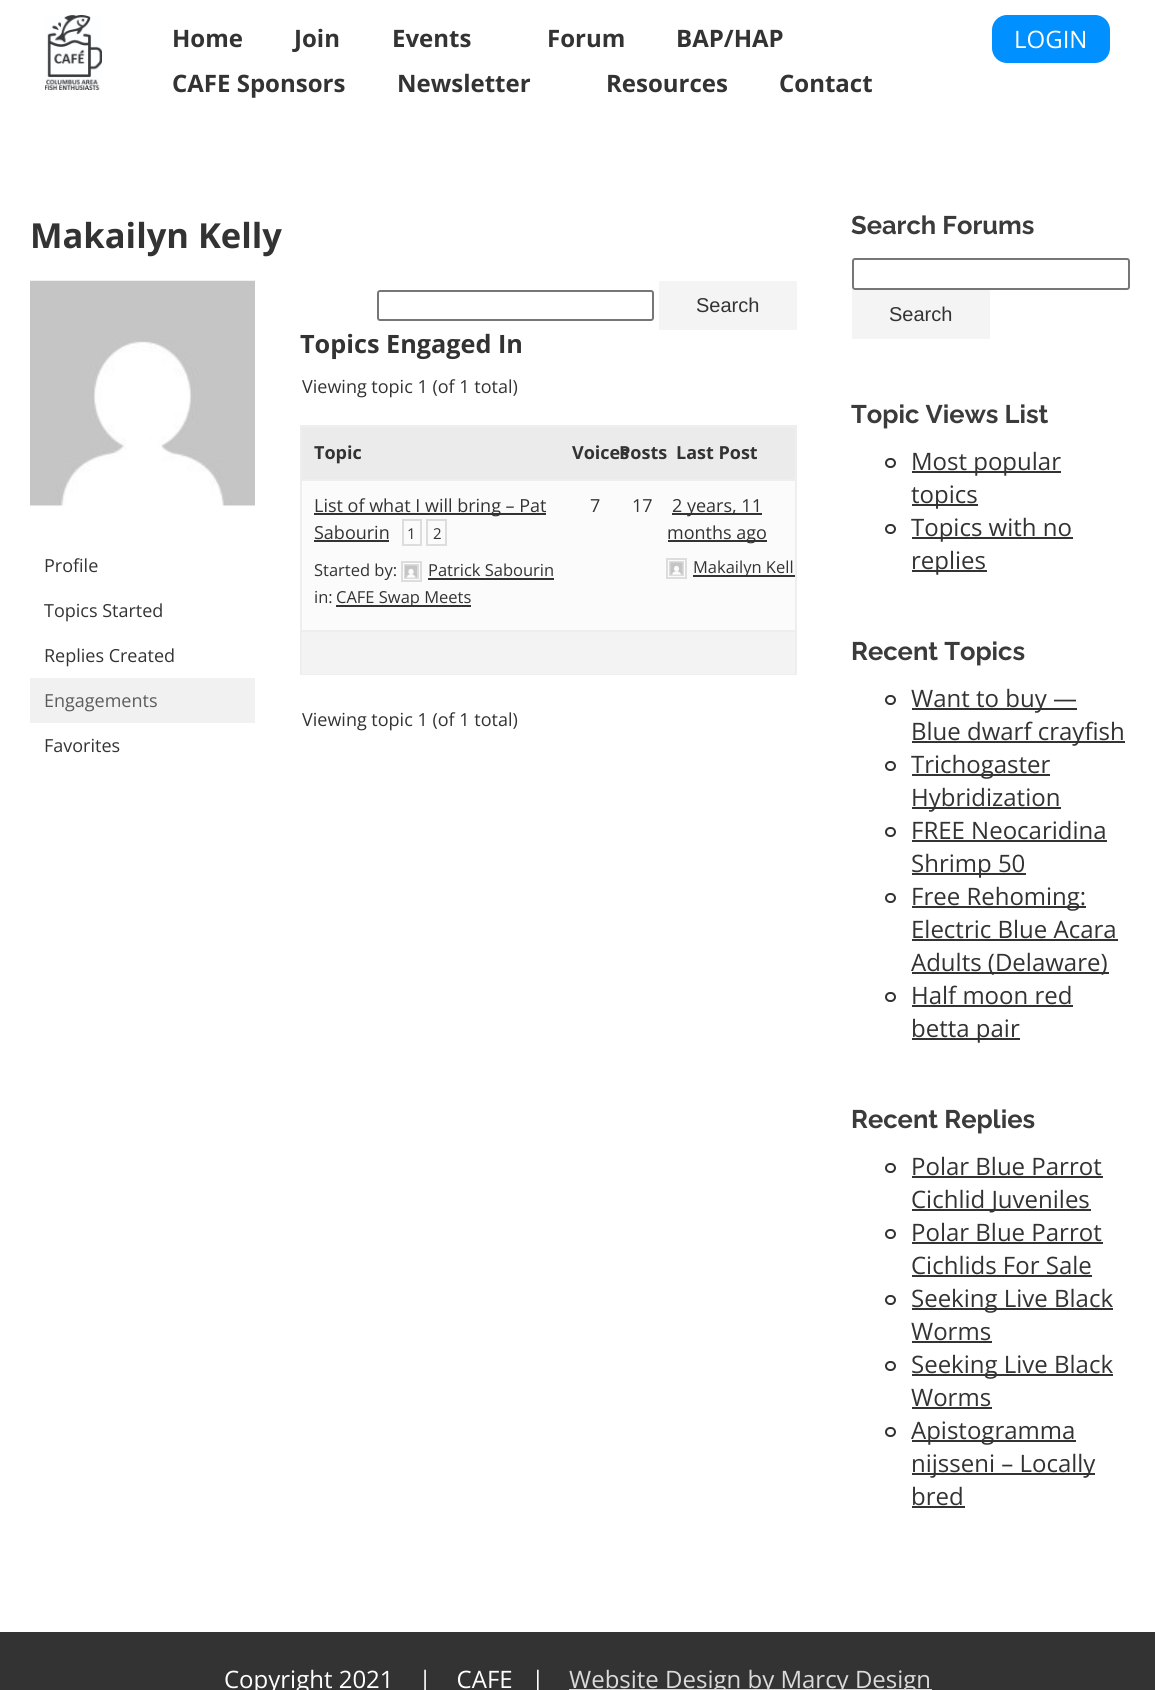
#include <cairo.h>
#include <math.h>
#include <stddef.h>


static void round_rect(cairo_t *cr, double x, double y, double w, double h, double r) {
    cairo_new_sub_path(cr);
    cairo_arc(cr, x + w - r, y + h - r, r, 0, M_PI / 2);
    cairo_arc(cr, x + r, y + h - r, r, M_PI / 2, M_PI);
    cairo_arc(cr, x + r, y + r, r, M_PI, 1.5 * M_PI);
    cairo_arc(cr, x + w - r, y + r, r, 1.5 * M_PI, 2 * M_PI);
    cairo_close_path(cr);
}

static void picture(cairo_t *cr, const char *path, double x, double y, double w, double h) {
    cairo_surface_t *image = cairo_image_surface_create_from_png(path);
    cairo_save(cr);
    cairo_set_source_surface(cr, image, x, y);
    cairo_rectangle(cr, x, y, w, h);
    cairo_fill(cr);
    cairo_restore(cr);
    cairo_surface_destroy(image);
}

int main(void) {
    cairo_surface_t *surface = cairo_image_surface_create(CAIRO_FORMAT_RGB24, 1155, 1690);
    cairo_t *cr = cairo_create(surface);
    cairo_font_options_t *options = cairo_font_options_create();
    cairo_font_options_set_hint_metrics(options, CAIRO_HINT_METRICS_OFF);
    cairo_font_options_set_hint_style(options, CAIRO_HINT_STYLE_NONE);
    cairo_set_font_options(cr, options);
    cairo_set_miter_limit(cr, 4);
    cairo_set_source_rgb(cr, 1, 1, 1);
    cairo_paint(cr);
    picture(cr, "img1.png", 45, 15, 57, 75);
    cairo_select_font_face(cr, "Open Sans", CAIRO_FONT_SLANT_NORMAL, CAIRO_FONT_WEIGHT_BOLD);
    cairo_set_font_size(cr, 24);
    cairo_set_source_rgb(cr, 0.2, 0.2, 0.2);
    cairo_move_to(cr, 172, 47);
    cairo_show_text(cr, "Home");
    cairo_move_to(cr, 294, 47);
    cairo_show_text(cr, "Join");
    cairo_move_to(cr, 392, 47);
    cairo_show_text(cr, "Events");
    cairo_move_to(cr, 547, 47);
    cairo_show_text(cr, "Forum");
    cairo_move_to(cr, 676, 47);
    cairo_show_text(cr, "BAP/HAP");
    cairo_move_to(cr, 172, 92);
    cairo_show_text(cr, "CAFE Sponsors");
    cairo_move_to(cr, 397, 92);
    cairo_show_text(cr, "Newsletter");
    cairo_move_to(cr, 606, 92);
    cairo_show_text(cr, "Resources");
    cairo_move_to(cr, 779, 92);
    cairo_show_text(cr, "Contact");
    cairo_set_source_rgb(cr, 0, 0.565, 1);
    round_rect(cr, 992, 15, 118, 48, 15);
    cairo_fill(cr);
    cairo_select_font_face(cr, "Open Sans", CAIRO_FONT_SLANT_NORMAL, CAIRO_FONT_WEIGHT_NORMAL);
    cairo_set_source_rgb(cr, 1, 1, 1);
    cairo_move_to(cr, 1014, 48);
    cairo_show_text(cr, "LOGIN");
    cairo_select_font_face(cr, "Open Sans", CAIRO_FONT_SLANT_NORMAL, CAIRO_FONT_WEIGHT_BOLD);
    cairo_set_font_size(cr, 34.5);
    cairo_set_source_rgb(cr, 0.2, 0.2, 0.2);
    cairo_move_to(cr, 30, 248);
    cairo_show_text(cr, "Makailyn Kelly");
    picture(cr, "img2.png", 30, 280, 225, 226);
    cairo_select_font_face(cr, "Open Sans", CAIRO_FONT_SLANT_NORMAL, CAIRO_FONT_WEIGHT_NORMAL);
    cairo_set_font_size(cr, 18);
    cairo_move_to(cr, 44, 572);
    cairo_show_text(cr, "Profile");
    cairo_move_to(cr, 44, 617);
    cairo_show_text(cr, "Topics Started");
    cairo_move_to(cr, 44, 662);
    cairo_show_text(cr, "Replies Created");
    cairo_set_source_rgb(cr, 0.945, 0.945, 0.945);
    cairo_rectangle(cr, 30, 678, 225, 45);
    cairo_fill(cr);
    cairo_set_source_rgb(cr, 0.361, 0.361, 0.361);
    cairo_move_to(cr, 44, 707);
    cairo_show_text(cr, "Engagements");
    cairo_set_source_rgb(cr, 0.2, 0.2, 0.2);
    cairo_move_to(cr, 44, 752);
    cairo_show_text(cr, "Favorites");
    round_rect(cr, 378, 291, 275, 29, 2);
    cairo_set_source_rgb(cr, 0.463, 0.463, 0.463);
    cairo_stroke(cr);
    cairo_set_source_rgb(cr, 0.957, 0.957, 0.957);
    cairo_rectangle(cr, 659, 281, 138, 49);
    cairo_fill(cr);
    cairo_select_font_face(cr, "Liberation Sans", CAIRO_FONT_SLANT_NORMAL, CAIRO_FONT_WEIGHT_NORMAL);
    cairo_set_font_size(cr, 20);
    cairo_set_source_rgb(cr, 0.2, 0.2, 0.2);
    cairo_move_to(cr, 696, 312);
    cairo_show_text(cr, "Search");
    cairo_select_font_face(cr, "Open Sans", CAIRO_FONT_SLANT_NORMAL, CAIRO_FONT_WEIGHT_BOLD);
    cairo_set_font_size(cr, 25.25);
    cairo_move_to(cr, 300, 353);
    cairo_show_text(cr, "Topics Engaged In");
    cairo_select_font_face(cr, "Open Sans", CAIRO_FONT_SLANT_NORMAL, CAIRO_FONT_WEIGHT_NORMAL);
    cairo_set_font_size(cr, 18);
    cairo_move_to(cr, 302, 393);
    cairo_show_text(cr, "Viewing topic 1 (of 1 total)");
    cairo_rectangle(cr, 301, 426, 495, 248);
    cairo_set_source_rgb(cr, 0.933, 0.933, 0.933);
    cairo_stroke(cr);
    cairo_set_source_rgb(cr, 0.918, 0.918, 0.918);
    cairo_rectangle(cr, 302, 428, 493, 51);
    cairo_fill(cr);
    cairo_set_source_rgb(cr, 0.933, 0.933, 0.933);
    cairo_rectangle(cr, 302, 427, 493, 1);
    cairo_fill(cr);
    cairo_select_font_face(cr, "Open Sans", CAIRO_FONT_SLANT_NORMAL, CAIRO_FONT_WEIGHT_BOLD);
    cairo_set_source_rgb(cr, 0.2, 0.2, 0.2);
    cairo_move_to(cr, 314, 459);
    cairo_show_text(cr, "Topic");
    cairo_move_to(cr, 572, 459);
    cairo_show_text(cr, "Voices");
    cairo_move_to(cr, 619, 459);
    cairo_show_text(cr, "Posts");
    cairo_move_to(cr, 676, 459);
    cairo_show_text(cr, "Last Post");
    cairo_set_source_rgb(cr, 0.984, 0.984, 0.984);
    cairo_rectangle(cr, 302, 481, 493, 149);
    cairo_fill(cr);
    cairo_set_source_rgb(cr, 0.933, 0.933, 0.933);
    cairo_rectangle(cr, 302, 479, 493, 2);
    cairo_fill(cr);
    cairo_set_source_rgb(cr, 0.2, 0.2, 0.2);
    cairo_rectangle(cr, 314, 513, 232, 2);
    cairo_fill(cr);
    cairo_select_font_face(cr, "Open Sans", CAIRO_FONT_SLANT_NORMAL, CAIRO_FONT_WEIGHT_NORMAL);
    cairo_move_to(cr, 314, 512);
    cairo_show_text(cr, "List of what I will bring – Pat");
    cairo_move_to(cr, 314, 539);
    cairo_show_text(cr, "Sabourin");
    cairo_rectangle(cr, 314, 540, 75, 2);
    cairo_fill(cr);
    cairo_rectangle(cr, 403, 520, 18, 25);
    cairo_set_source_rgb(cr, 0.867, 0.867, 0.867);
    cairo_stroke(cr);
    cairo_set_font_size(cr, 15);
    cairo_set_source_rgb(cr, 0.2, 0.2, 0.2);
    cairo_move_to(cr, 407, 539);
    cairo_show_text(cr, "1");
    cairo_rectangle(cr, 427, 520, 19, 25);
    cairo_set_source_rgb(cr, 0.867, 0.867, 0.867);
    cairo_stroke(cr);
    cairo_set_source_rgb(cr, 0.2, 0.2, 0.2);
    cairo_move_to(cr, 433, 539);
    cairo_show_text(cr, "2");
    cairo_set_font_size(cr, 16.5);
    cairo_move_to(cr, 314, 576);
    cairo_show_text(cr, "Started by:");
    cairo_rectangle(cr, 402, 562, 19, 19);
    cairo_set_source_rgb(cr, 0.867, 0.867, 0.867);
    cairo_stroke(cr);
    cairo_rectangle(cr, 405, 565, 13, 13);
    cairo_stroke(cr);
    picture(cr, "img3.png", 405, 565, 12, 13);
    cairo_set_source_rgb(cr, 0.2, 0.2, 0.2);
    cairo_move_to(cr, 428, 576);
    cairo_show_text(cr, "Patrick Sabourin");
    cairo_rectangle(cr, 428, 578, 126, 2);
    cairo_fill(cr);
    cairo_move_to(cr, 314, 603);
    cairo_show_text(cr, "in:");
    cairo_rectangle(cr, 336, 605, 135, 2);
    cairo_fill(cr);
    cairo_move_to(cr, 336, 603);
    cairo_show_text(cr, "CAFE Swap Meets");
    cairo_set_font_size(cr, 18);
    cairo_move_to(cr, 590, 512);
    cairo_show_text(cr, "7");
    cairo_move_to(cr, 632, 512);
    cairo_show_text(cr, "17");
    cairo_rectangle(cr, 672, 513, 90, 2);
    cairo_fill(cr);
    cairo_move_to(cr, 672, 512);
    cairo_show_text(cr, "2 years, 11");
    cairo_rectangle(cr, 668, 540, 99, 2);
    cairo_fill(cr);
    cairo_move_to(cr, 667, 539);
    cairo_show_text(cr, "months ago");
    cairo_rectangle(cr, 667, 559, 19, 19);
    cairo_set_source_rgb(cr, 0.867, 0.867, 0.867);
    cairo_stroke(cr);
    cairo_rectangle(cr, 670, 562, 13, 13);
    cairo_stroke(cr);
    picture(cr, "img4.png", 670, 562, 13, 13);
    cairo_set_source_rgb(cr, 0.2, 0.2, 0.2);
    cairo_rectangle(cr, 693, 575, 102, 2);
    cairo_fill(cr);
    cairo_set_font_size(cr, 16.5);
    cairo_move_to(cr, 693, 573);
    cairo_show_text(cr, "Makailyn Kell");
    cairo_set_source_rgb(cr, 0.953, 0.953, 0.953);
    cairo_rectangle(cr, 302, 632, 493, 42);
    cairo_fill(cr);
    cairo_set_source_rgb(cr, 0.933, 0.933, 0.933);
    cairo_rectangle(cr, 302, 630, 493, 2);
    cairo_fill(cr);
    cairo_set_font_size(cr, 18);
    cairo_set_source_rgb(cr, 0.2, 0.2, 0.2);
    cairo_move_to(cr, 302, 726);
    cairo_show_text(cr, "Viewing topic 1 (of 1 total)");
    cairo_select_font_face(cr, "Raleway", CAIRO_FONT_SLANT_NORMAL, CAIRO_FONT_WEIGHT_BOLD);
    cairo_set_font_size(cr, 25.5);
    cairo_set_source_rgb(cr, 0.231, 0.231, 0.231);
    cairo_move_to(cr, 851, 234);
    cairo_show_text(cr, "Search Forums");
    round_rect(cr, 853, 259, 276, 30, 2);
    cairo_set_source_rgb(cr, 0.463, 0.463, 0.463);
    cairo_stroke(cr);
    cairo_set_source_rgb(cr, 0.957, 0.957, 0.957);
    cairo_rectangle(cr, 852, 290, 138, 49);
    cairo_fill(cr);
    cairo_select_font_face(cr, "Liberation Sans", CAIRO_FONT_SLANT_NORMAL, CAIRO_FONT_WEIGHT_NORMAL);
    cairo_set_font_size(cr, 20);
    cairo_set_source_rgb(cr, 0.2, 0.2, 0.2);
    cairo_move_to(cr, 889, 321);
    cairo_show_text(cr, "Search");
    cairo_select_font_face(cr, "Raleway", CAIRO_FONT_SLANT_NORMAL, CAIRO_FONT_WEIGHT_BOLD);
    cairo_set_font_size(cr, 25.5);
    cairo_set_source_rgb(cr, 0.231, 0.231, 0.231);
    cairo_move_to(cr, 851, 423);
    cairo_show_text(cr, "Topic Views List");
    round_rect(cr, 886, 459, 9, 8, 4);
    cairo_set_source_rgb(cr, 0.2, 0.2, 0.2);
    cairo_stroke(cr);
    cairo_rectangle(cr, 912, 471, 149, 2);
    cairo_fill(cr);
    cairo_select_font_face(cr, "Open Sans", CAIRO_FONT_SLANT_NORMAL, CAIRO_FONT_WEIGHT_NORMAL);
    cairo_set_font_size(cr, 24);
    cairo_move_to(cr, 911, 470);
    cairo_show_text(cr, "Most popular");
    cairo_rectangle(cr, 912, 504, 66, 2);
    cairo_fill(cr);
    cairo_move_to(cr, 911, 503);
    cairo_show_text(cr, "topics");
    round_rect(cr, 886, 525, 9, 8, 4);
    cairo_stroke(cr);
    cairo_rectangle(cr, 912, 537, 161, 2);
    cairo_fill(cr);
    cairo_move_to(cr, 911, 536);
    cairo_show_text(cr, "Topics with no");
    cairo_rectangle(cr, 912, 570, 75, 2);
    cairo_fill(cr);
    cairo_move_to(cr, 911, 569);
    cairo_show_text(cr, "replies");
    cairo_select_font_face(cr, "Raleway", CAIRO_FONT_SLANT_NORMAL, CAIRO_FONT_WEIGHT_BOLD);
    cairo_set_font_size(cr, 25.5);
    cairo_set_source_rgb(cr, 0.231, 0.231, 0.231);
    cairo_move_to(cr, 851, 660);
    cairo_show_text(cr, "Recent Topics");
    round_rect(cr, 886, 696, 9, 8, 4);
    cairo_set_source_rgb(cr, 0.2, 0.2, 0.2);
    cairo_stroke(cr);
    cairo_rectangle(cr, 912, 708, 165, 2);
    cairo_fill(cr);
    cairo_select_font_face(cr, "Open Sans", CAIRO_FONT_SLANT_NORMAL, CAIRO_FONT_WEIGHT_NORMAL);
    cairo_set_font_size(cr, 24);
    cairo_move_to(cr, 911, 707);
    cairo_show_text(cr, "Want to buy —");
    cairo_rectangle(cr, 912, 741, 213, 2);
    cairo_fill(cr);
    cairo_move_to(cr, 911, 740);
    cairo_show_text(cr, "Blue dwarf crayfish");
    round_rect(cr, 886, 762, 9, 8, 4);
    cairo_stroke(cr);
    cairo_rectangle(cr, 912, 774, 138, 2);
    cairo_fill(cr);
    cairo_move_to(cr, 911, 773);
    cairo_show_text(cr, "Trichogaster");
    cairo_rectangle(cr, 912, 807, 149, 2);
    cairo_fill(cr);
    cairo_move_to(cr, 911, 806);
    cairo_show_text(cr, "Hybridization");
    round_rect(cr, 886, 828, 9, 8, 4);
    cairo_stroke(cr);
    cairo_move_to(cr, 911, 839);
    cairo_show_text(cr, "FREE Neocaridina");
    cairo_rectangle(cr, 912, 840, 195, 2);
    cairo_fill(cr);
    cairo_rectangle(cr, 912, 873, 114, 2);
    cairo_fill(cr);
    cairo_move_to(cr, 911, 872);
    cairo_show_text(cr, "Shrimp 50");
    round_rect(cr, 886, 894, 9, 8, 4);
    cairo_stroke(cr);
    cairo_rectangle(cr, 912, 906, 174, 2);
    cairo_fill(cr);
    cairo_move_to(cr, 911, 905);
    cairo_show_text(cr, "Free Rehoming:");
    cairo_move_to(cr, 911, 938);
    cairo_show_text(cr, "Electric Blue Acara");
    cairo_rectangle(cr, 912, 939, 206, 2);
    cairo_fill(cr);
    cairo_rectangle(cr, 912, 972, 197, 2);
    cairo_fill(cr);
    cairo_move_to(cr, 911, 971);
    cairo_show_text(cr, "Adults (Delaware)");
    round_rect(cr, 886, 993, 9, 8, 4);
    cairo_stroke(cr);
    cairo_move_to(cr, 911, 1004);
    cairo_show_text(cr, "Half moon red");
    cairo_rectangle(cr, 912, 1005, 161, 2);
    cairo_fill(cr);
    cairo_rectangle(cr, 912, 1038, 108, 2);
    cairo_fill(cr);
    cairo_move_to(cr, 911, 1037);
    cairo_show_text(cr, "betta pair");
    cairo_select_font_face(cr, "Raleway", CAIRO_FONT_SLANT_NORMAL, CAIRO_FONT_WEIGHT_BOLD);
    cairo_set_font_size(cr, 25.5);
    cairo_set_source_rgb(cr, 0.231, 0.231, 0.231);
    cairo_move_to(cr, 851, 1128);
    cairo_show_text(cr, "Recent Replies");
    round_rect(cr, 886, 1164, 9, 8, 4);
    cairo_set_source_rgb(cr, 0.2, 0.2, 0.2);
    cairo_stroke(cr);
    cairo_select_font_face(cr, "Open Sans", CAIRO_FONT_SLANT_NORMAL, CAIRO_FONT_WEIGHT_NORMAL);
    cairo_set_font_size(cr, 24);
    cairo_move_to(cr, 911, 1175);
    cairo_show_text(cr, "Polar Blue Parrot");
    cairo_rectangle(cr, 912, 1176, 191, 2);
    cairo_fill(cr);
    cairo_rectangle(cr, 912, 1209, 179, 2);
    cairo_fill(cr);
    cairo_move_to(cr, 911, 1208);
    cairo_show_text(cr, "Cichlid Juveniles");
    round_rect(cr, 886, 1230, 9, 8, 4);
    cairo_stroke(cr);
    cairo_move_to(cr, 911, 1241);
    cairo_show_text(cr, "Polar Blue Parrot");
    cairo_rectangle(cr, 912, 1242, 191, 2);
    cairo_fill(cr);
    cairo_move_to(cr, 911, 1274);
    cairo_show_text(cr, "Cichlids For Sale");
    cairo_rectangle(cr, 912, 1275, 180, 2);
    cairo_fill(cr);
    round_rect(cr, 886, 1296, 9, 8, 4);
    cairo_stroke(cr);
    cairo_rectangle(cr, 912, 1308, 201, 2);
    cairo_fill(cr);
    cairo_move_to(cr, 911, 1307);
    cairo_show_text(cr, "Seeking Live Black");
    cairo_move_to(cr, 911, 1340);
    cairo_show_text(cr, "Worms");
    cairo_rectangle(cr, 912, 1341, 80, 2);
    cairo_fill(cr);
    round_rect(cr, 886, 1362, 9, 8, 4);
    cairo_stroke(cr);
    cairo_rectangle(cr, 912, 1374, 201, 2);
    cairo_fill(cr);
    cairo_move_to(cr, 911, 1373);
    cairo_show_text(cr, "Seeking Live Black");
    cairo_move_to(cr, 911, 1406);
    cairo_show_text(cr, "Worms");
    cairo_rectangle(cr, 912, 1407, 80, 2);
    cairo_fill(cr);
    round_rect(cr, 886, 1428, 9, 8, 4);
    cairo_stroke(cr);
    cairo_rectangle(cr, 912, 1440, 164, 2);
    cairo_fill(cr);
    cairo_move_to(cr, 911, 1439);
    cairo_show_text(cr, "Apistogramma");
    cairo_rectangle(cr, 912, 1473, 183, 2);
    cairo_fill(cr);
    cairo_move_to(cr, 911, 1472);
    cairo_show_text(cr, "nijsseni – Locally");
    cairo_move_to(cr, 911, 1505);
    cairo_show_text(cr, "bred");
    cairo_rectangle(cr, 912, 1506, 53, 2);
    cairo_fill(cr);
    cairo_rectangle(cr, 0, 1632, 1155, 58);
    cairo_fill(cr);
    cairo_set_source_rgb(cr, 1, 1, 1);
    cairo_move_to(cr, 224, 1688);
    cairo_show_text(cr, "Copyright 2021    |    CAFE   |");
    cairo_set_source_rgb(cr, 0.855, 0.855, 0.855);
    cairo_rectangle(cr, 569, 1689, 363, 1);
    cairo_fill(cr);
    cairo_move_to(cr, 569, 1688);
    cairo_show_text(cr, "Website Design by Marcy Design");
    cairo_surface_write_to_png(surface, "page.png");
    cairo_font_options_destroy(options);
    cairo_destroy(cr);
    cairo_surface_destroy(surface);
    return 0;
}
